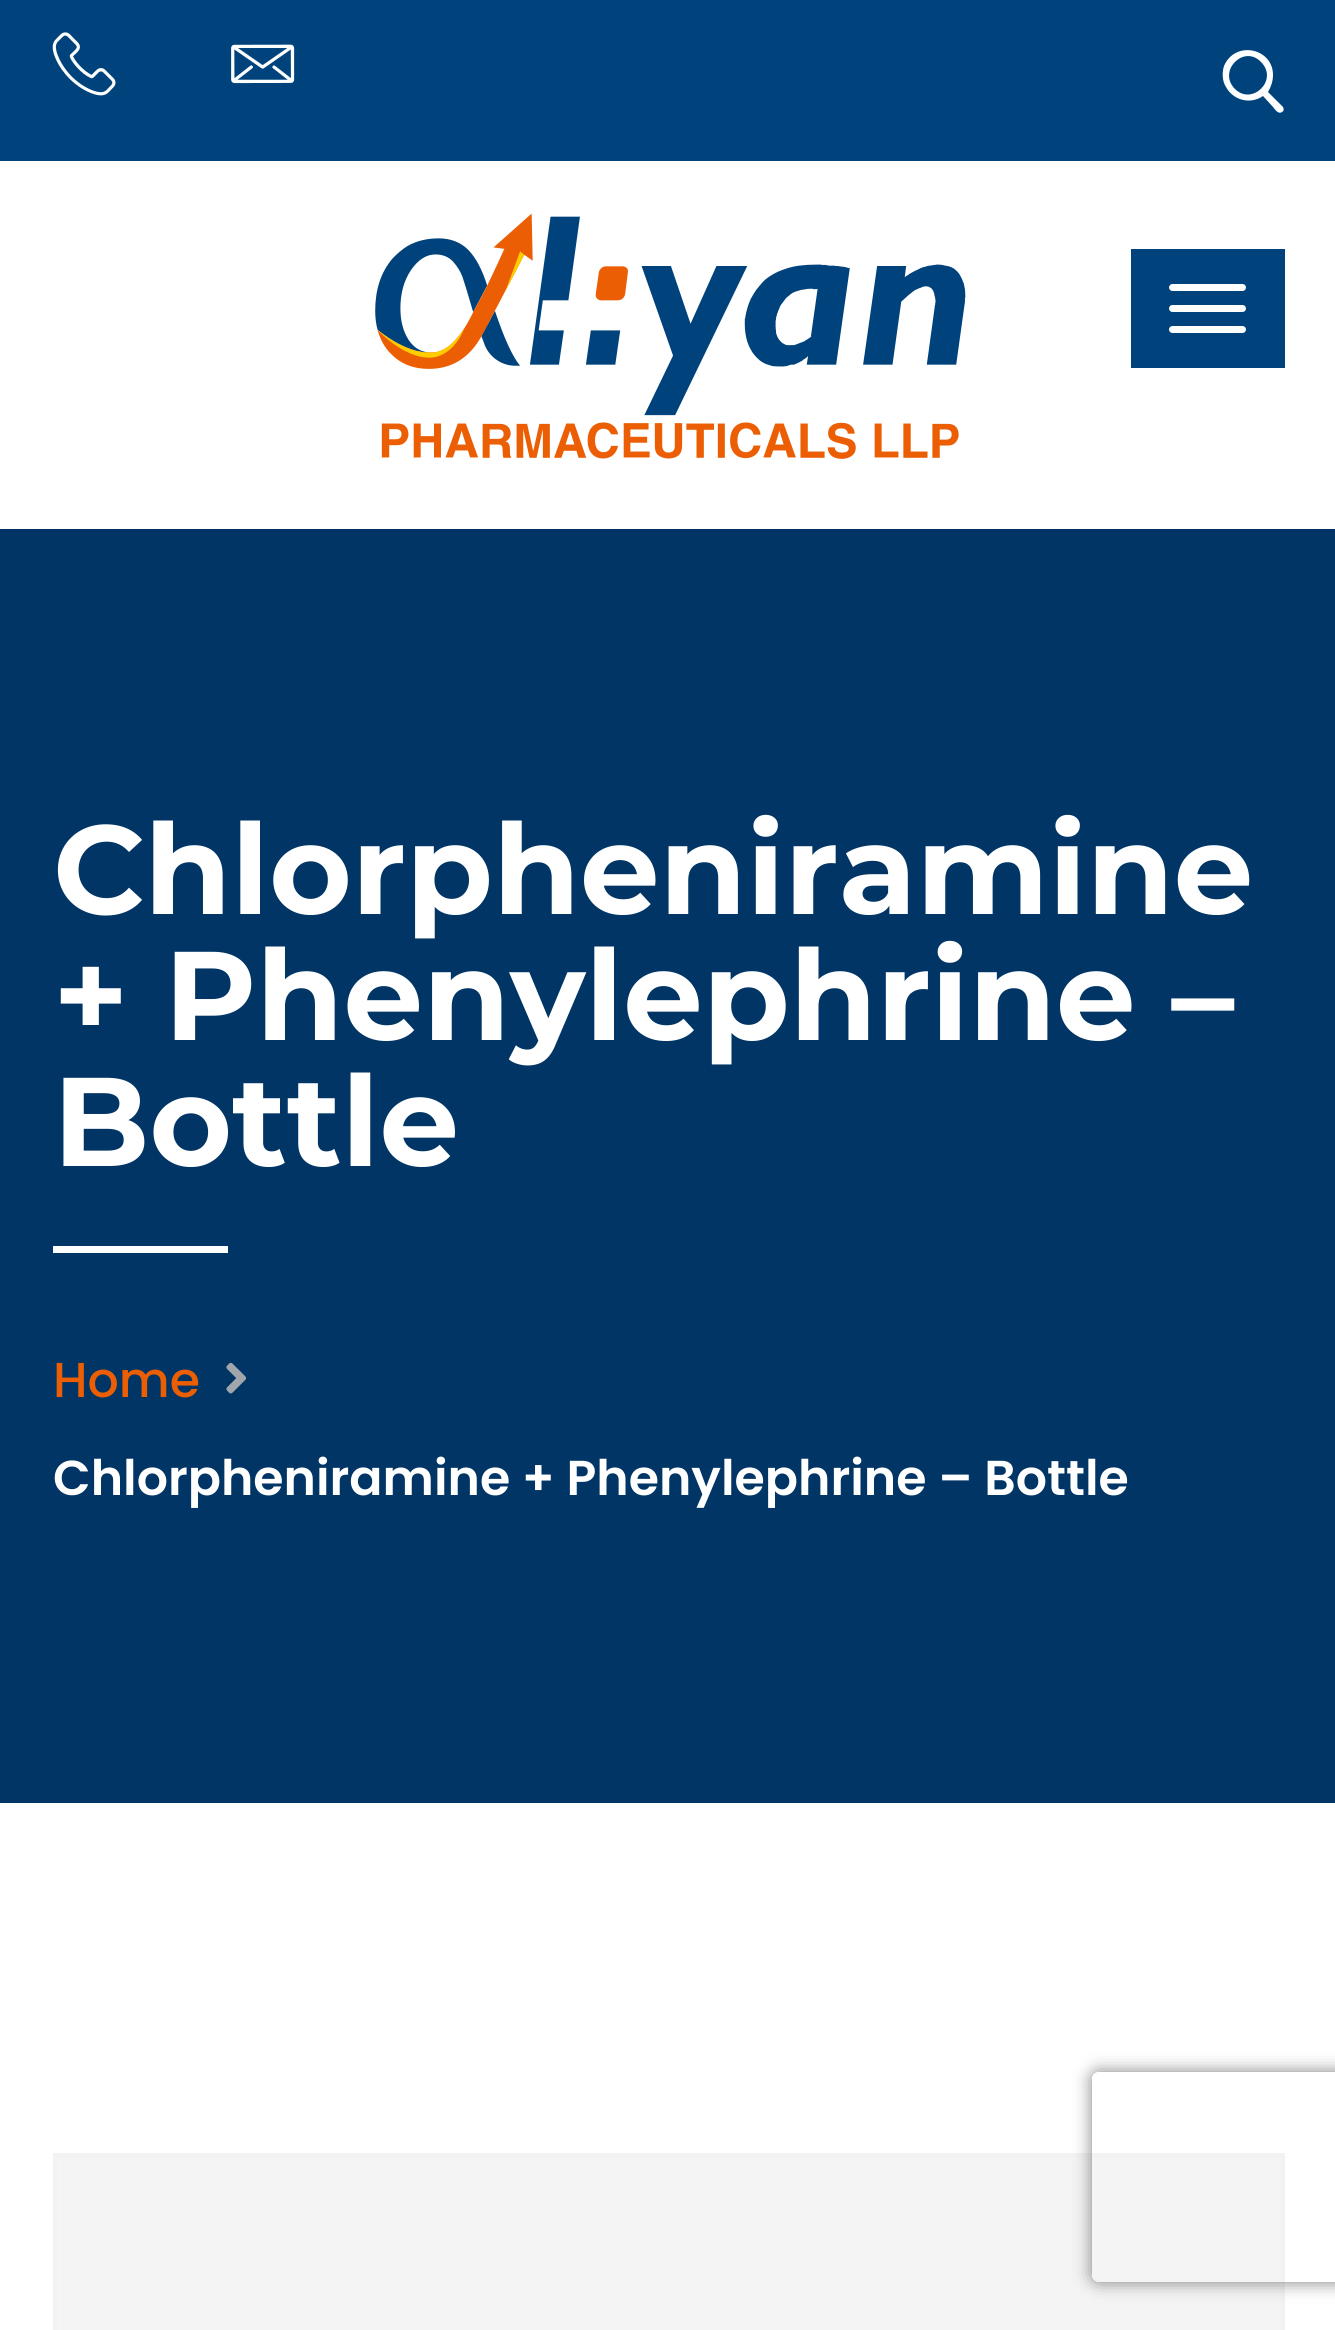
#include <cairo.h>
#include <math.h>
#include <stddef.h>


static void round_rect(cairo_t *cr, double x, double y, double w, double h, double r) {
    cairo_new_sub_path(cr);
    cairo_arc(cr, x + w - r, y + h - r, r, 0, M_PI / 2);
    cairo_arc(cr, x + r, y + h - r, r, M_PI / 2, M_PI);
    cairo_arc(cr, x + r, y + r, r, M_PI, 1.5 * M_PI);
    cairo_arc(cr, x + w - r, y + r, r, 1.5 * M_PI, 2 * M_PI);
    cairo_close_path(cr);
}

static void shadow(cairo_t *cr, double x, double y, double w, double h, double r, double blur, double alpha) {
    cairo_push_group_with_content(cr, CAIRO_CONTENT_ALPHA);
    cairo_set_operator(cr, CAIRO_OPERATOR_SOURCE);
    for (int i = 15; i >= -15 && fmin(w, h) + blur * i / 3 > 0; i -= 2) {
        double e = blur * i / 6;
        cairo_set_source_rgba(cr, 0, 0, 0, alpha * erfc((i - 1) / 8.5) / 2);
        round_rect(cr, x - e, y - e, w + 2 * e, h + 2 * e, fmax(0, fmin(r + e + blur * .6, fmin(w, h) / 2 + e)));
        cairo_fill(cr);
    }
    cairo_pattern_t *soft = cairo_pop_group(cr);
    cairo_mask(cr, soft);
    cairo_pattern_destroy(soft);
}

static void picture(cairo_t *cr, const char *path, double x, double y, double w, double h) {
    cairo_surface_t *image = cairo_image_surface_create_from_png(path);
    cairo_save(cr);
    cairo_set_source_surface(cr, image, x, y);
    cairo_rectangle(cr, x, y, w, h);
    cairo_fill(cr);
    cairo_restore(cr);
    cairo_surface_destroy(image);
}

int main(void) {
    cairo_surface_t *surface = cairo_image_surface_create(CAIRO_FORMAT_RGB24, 1335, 2330);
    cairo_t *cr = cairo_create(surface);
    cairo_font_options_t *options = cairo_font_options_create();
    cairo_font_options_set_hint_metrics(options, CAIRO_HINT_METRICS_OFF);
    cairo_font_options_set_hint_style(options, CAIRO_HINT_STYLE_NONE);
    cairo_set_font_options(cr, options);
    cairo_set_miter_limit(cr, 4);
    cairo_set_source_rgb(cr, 1, 1, 1);
    cairo_paint(cr);
    cairo_set_source_rgb(cr, 0, 0.263, 0.486);
    cairo_rectangle(cr, 0, 0, 1335, 161);
    cairo_fill(cr);
    picture(cr, "img1.png", 52, 32, 64, 64);
    picture(cr, "img2.png", 231, 44, 64, 40);
    cairo_set_source_rgb(cr, 1, 1, 1);
    cairo_new_path(cr);
    cairo_move_to(cr, 1283, 107);
    cairo_curve_to(cr, 1284, 109, 1284, 111, 1282, 112);
    cairo_curve_to(cr, 1278, 115, 1274, 108, 1273, 107);
    cairo_line_to(cr, 1263, 96);
    cairo_curve_to(cr, 1250, 105, 1233, 100, 1226, 87);
    cairo_curve_to(cr, 1222, 81, 1222, 72, 1224, 66);
    cairo_curve_to(cr, 1235, 40, 1273, 48, 1273, 75);
    cairo_curve_to(cr, 1273, 81, 1271, 87, 1268, 92);
    cairo_close_path(cr);
    cairo_move_to(cr, 1261, 62);
    cairo_curve_to(cr, 1244, 44, 1217, 71, 1235, 89);
    cairo_curve_to(cr, 1252, 106, 1279, 80, 1261, 62);
    cairo_close_path(cr);
    cairo_fill(cr);
    picture(cr, "img3.png", 375, 214, 591, 245);
    cairo_set_source_rgb(cr, 0, 0.263, 0.486);
    cairo_rectangle(cr, 1131, 249, 154, 119);
    cairo_fill(cr);
    cairo_set_source_rgb(cr, 1, 1, 1);
    round_rect(cr, 1169, 284, 77, 7, 3.5);
    cairo_fill(cr);
    round_rect(cr, 1169, 305, 77, 7, 3.5);
    cairo_fill(cr);
    round_rect(cr, 1169, 326, 77, 7, 3.5);
    cairo_fill(cr);
    cairo_set_source_rgb(cr, 0, 0.208, 0.396);
    cairo_rectangle(cr, 0, 529, 1335, 1274);
    cairo_fill(cr);
    cairo_select_font_face(cr, "Montserrat", CAIRO_FONT_SLANT_NORMAL, CAIRO_FONT_WEIGHT_BOLD);
    cairo_set_font_size(cr, 126);
    cairo_set_source_rgb(cr, 1, 1, 1);
    cairo_move_to(cr, 53, 914);
    cairo_show_text(cr, "Chlorpheniramine");
    cairo_move_to(cr, 53, 1040);
    cairo_show_text(cr, "+ Phenylephrine –");
    cairo_move_to(cr, 53, 1166);
    cairo_show_text(cr, "Bottle");
    cairo_rectangle(cr, 53, 1246, 175, 7);
    cairo_fill(cr);
    cairo_select_font_face(cr, "Poppins Medium", CAIRO_FONT_SLANT_NORMAL, CAIRO_FONT_WEIGHT_NORMAL);
    cairo_set_font_size(cr, 49);
    cairo_set_source_rgb(cr, 0.922, 0.369, 0.016);
    cairo_move_to(cr, 53, 1397);
    cairo_show_text(cr, "Home");
    picture(cr, "img4.png", 226, 1362, 21, 32);
    cairo_select_font_face(cr, "Poppins SemiBold", CAIRO_FONT_SLANT_NORMAL, CAIRO_FONT_WEIGHT_NORMAL);
    cairo_set_source_rgb(cr, 1, 1, 1);
    cairo_move_to(cr, 53, 1495);
    cairo_show_text(cr, "Chlorpheniramine + Phenylephrine – Bottle");
    cairo_rectangle(cr, 55, 2155, 1228, 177);
    cairo_set_source_rgb(cr, 0.949, 0.949, 0.949);
    cairo_set_line_width(cr, 4);
    cairo_stroke(cr);
    cairo_set_source_rgb(cr, 0.957, 0.957, 0.957);
    cairo_rectangle(cr, 57, 2157, 1224, 173);
    cairo_fill(cr);
    cairo_save(cr);
    cairo_set_fill_rule(cr, CAIRO_FILL_RULE_EVEN_ODD);
    cairo_new_path(cr);
    cairo_move_to(cr, 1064, 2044);
    cairo_line_to(cr, 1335, 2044);
    cairo_line_to(cr, 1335, 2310);
    cairo_line_to(cr, 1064, 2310);
    cairo_close_path(cr);
    cairo_move_to(cr, 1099, 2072);
    cairo_line_to(cr, 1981, 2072);
    cairo_curve_to(cr, 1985, 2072, 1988, 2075, 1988, 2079);
    cairo_line_to(cr, 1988, 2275);
    cairo_curve_to(cr, 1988, 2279, 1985, 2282, 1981, 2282);
    cairo_line_to(cr, 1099, 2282);
    cairo_curve_to(cr, 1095, 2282, 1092, 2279, 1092, 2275);
    cairo_line_to(cr, 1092, 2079);
    cairo_curve_to(cr, 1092, 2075, 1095, 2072, 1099, 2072);
    cairo_close_path(cr);
    cairo_clip(cr);
    cairo_set_source_rgb(cr, 0.502, 0.502, 0.502);
    shadow(cr, 1092, 2072, 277, 210, 7, 9, 1);
    cairo_restore(cr);
    cairo_surface_write_to_png(surface, "page.png");
    cairo_font_options_destroy(options);
    cairo_destroy(cr);
    cairo_surface_destroy(surface);
    return 0;
}
